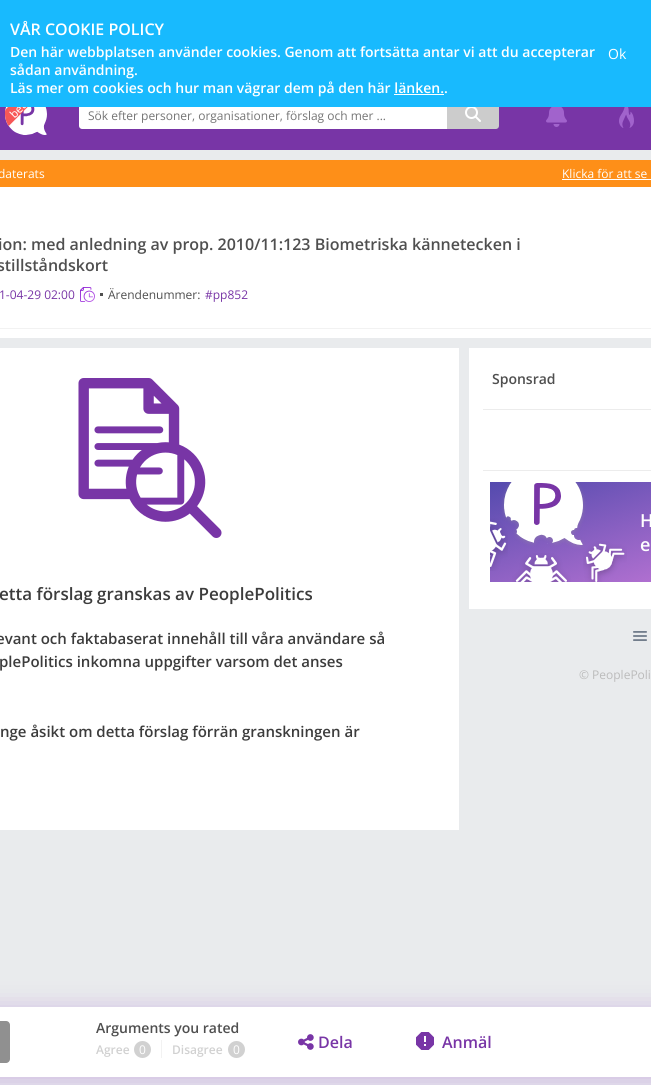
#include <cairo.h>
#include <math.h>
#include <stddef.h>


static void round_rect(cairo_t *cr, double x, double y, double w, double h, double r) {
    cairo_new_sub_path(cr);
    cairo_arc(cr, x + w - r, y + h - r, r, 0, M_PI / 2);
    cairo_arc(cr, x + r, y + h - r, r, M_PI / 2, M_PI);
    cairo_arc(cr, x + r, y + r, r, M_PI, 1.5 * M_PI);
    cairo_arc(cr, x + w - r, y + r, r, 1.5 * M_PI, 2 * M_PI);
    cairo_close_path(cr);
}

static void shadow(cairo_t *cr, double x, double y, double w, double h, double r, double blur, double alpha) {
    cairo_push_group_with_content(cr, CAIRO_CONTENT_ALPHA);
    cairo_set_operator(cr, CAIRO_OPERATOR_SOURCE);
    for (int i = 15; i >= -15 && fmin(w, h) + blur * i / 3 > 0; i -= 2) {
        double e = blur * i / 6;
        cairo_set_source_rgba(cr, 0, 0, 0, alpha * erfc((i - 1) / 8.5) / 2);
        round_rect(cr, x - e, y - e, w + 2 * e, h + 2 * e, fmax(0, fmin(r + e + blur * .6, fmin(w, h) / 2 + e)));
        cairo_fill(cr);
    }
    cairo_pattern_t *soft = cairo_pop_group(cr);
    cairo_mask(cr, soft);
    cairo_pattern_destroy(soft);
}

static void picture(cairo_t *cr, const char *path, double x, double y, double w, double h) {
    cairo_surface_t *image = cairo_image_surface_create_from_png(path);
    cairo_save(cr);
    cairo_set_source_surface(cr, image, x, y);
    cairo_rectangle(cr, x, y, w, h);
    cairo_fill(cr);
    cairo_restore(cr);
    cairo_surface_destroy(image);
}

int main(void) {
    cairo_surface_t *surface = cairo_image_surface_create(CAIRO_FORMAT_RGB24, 651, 1085);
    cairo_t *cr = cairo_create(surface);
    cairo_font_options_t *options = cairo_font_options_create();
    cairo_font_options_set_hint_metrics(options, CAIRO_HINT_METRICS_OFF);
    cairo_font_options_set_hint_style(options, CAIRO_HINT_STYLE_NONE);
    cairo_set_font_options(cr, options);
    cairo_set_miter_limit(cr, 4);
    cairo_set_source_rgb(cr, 0.914, 0.918, 0.929);
    cairo_paint(cr);
    cairo_set_source_rgb(cr, 0.471, 0.208, 0.651);
    cairo_rectangle(cr, 0, 107, 651, 43);
    cairo_fill(cr);
    cairo_set_source_rgb(cr, 1, 1, 1);
    cairo_new_path(cr);
    cairo_move_to(cr, 82, 101);
    cairo_line_to(cr, 447, 101);
    cairo_line_to(cr, 447, 129);
    cairo_line_to(cr, 82, 129);
    cairo_curve_to(cr, 80.5, 129, 79, 127.5, 79, 126);
    cairo_line_to(cr, 79, 104);
    cairo_curve_to(cr, 79, 102.5, 80.5, 101, 82, 101);
    cairo_close_path(cr);
    cairo_fill(cr);
    cairo_set_source_rgb(cr, 0.8, 0.8, 0.8);
    cairo_new_path(cr);
    cairo_move_to(cr, 447, 101);
    cairo_line_to(cr, 496, 101);
    cairo_curve_to(cr, 497.5, 101, 499, 102.5, 499, 104);
    cairo_line_to(cr, 499, 126);
    cairo_curve_to(cr, 499, 127.5, 497.5, 129, 496, 129);
    cairo_line_to(cr, 447, 129);
    cairo_close_path(cr);
    cairo_fill(cr);
    cairo_set_source_rgb(cr, 0.094, 0.729, 0.996);
    cairo_rectangle(cr, 0, 0, 651, 107);
    cairo_fill(cr);
    cairo_select_font_face(cr, "Open Sans SemiBold", CAIRO_FONT_SLANT_NORMAL, CAIRO_FONT_WEIGHT_NORMAL);
    cairo_set_font_size(cr, 16);
    cairo_set_source_rgb(cr, 1, 1, 1);
    cairo_move_to(cr, 10, 35);
    cairo_show_text(cr, "VÅR COOKIE POLICY");
    cairo_set_font_size(cr, 14);
    cairo_move_to(cr, 10, 57);
    cairo_show_text(cr, "Den här webbplatsen använder cookies. Genom att fortsätta antar vi att du accepterar");
    cairo_move_to(cr, 10, 75);
    cairo_show_text(cr, "sådan användning.");
    cairo_move_to(cr, 10, 93);
    cairo_show_text(cr, "Läs mer om cookies och hur man vägrar dem på den här länken..");
    cairo_rectangle(cr, 394, 94, 50, 1);
    cairo_fill(cr);
    cairo_select_font_face(cr, "Open Sans", CAIRO_FONT_SLANT_NORMAL, CAIRO_FONT_WEIGHT_NORMAL);
    cairo_move_to(cr, 608, 59);
    cairo_show_text(cr, "Ok");
    picture(cr, "img1.png", 5, 107, 42, 28);
    cairo_set_font_size(cr, 12);
    cairo_set_source_rgb(cr, 0.459, 0.459, 0.459);
    cairo_move_to(cr, 88, 120);
    cairo_show_text(cr, "Sök efter personer, organisationer, förslag och mer ...");
    picture(cr, "img2.png", 465, 107, 16, 15);
    picture(cr, "img3.png", 546, 107, 21, 20);
    picture(cr, "img4.png", 619, 107, 15, 21);
    cairo_set_source_rgb(cr, 0.996, 0.561, 0.094);
    cairo_rectangle(cr, 0, 160, 651, 27);
    cairo_fill(cr);
    cairo_set_source_rgb(cr, 1, 1, 1);
    cairo_move_to(cr, -2, 178);
    cairo_show_text(cr, "daterats");
    cairo_move_to(cr, 562, 178);
    cairo_show_text(cr, "Klicka för att se");
    cairo_rectangle(cr, 562, 179, 89, 1);
    cairo_fill(cr);
    cairo_rectangle(cr, 0, 187, 651, 151);
    cairo_fill(cr);
    cairo_select_font_face(cr, "Open Sans SemiBold", CAIRO_FONT_SLANT_NORMAL, CAIRO_FONT_WEIGHT_NORMAL);
    cairo_set_font_size(cr, 16);
    cairo_set_source_rgb(cr, 0.31, 0.31, 0.31);
    cairo_move_to(cr, -2, 250);
    cairo_show_text(cr, "ion: med anledning av prop. 2010/11:123 Biometriska kännetecken i");
    cairo_move_to(cr, -3, 271);
    cairo_show_text(cr, "stillståndskort");
    cairo_select_font_face(cr, "Open Sans", CAIRO_FONT_SLANT_NORMAL, CAIRO_FONT_WEIGHT_NORMAL);
    cairo_set_font_size(cr, 12);
    cairo_set_source_rgb(cr, 0.471, 0.208, 0.651);
    cairo_move_to(cr, -1, 299);
    cairo_show_text(cr, "1-04-29 02:00");
    picture(cr, "img5.png", 80, 287, 15, 15);
    cairo_set_source_rgb(cr, 0.31, 0.31, 0.31);
    cairo_rectangle(cr, 100, 293, 3, 3);
    cairo_fill(cr);
    cairo_move_to(cr, 108, 299);
    cairo_show_text(cr, "Ärendenummer:");
    cairo_set_source_rgb(cr, 0.471, 0.208, 0.651);
    cairo_move_to(cr, 205, 299);
    cairo_show_text(cr, "#pp852");
    cairo_set_source_rgb(cr, 0.949, 0.949, 0.949);
    cairo_rectangle(cr, 0, 328, 651, 1);
    cairo_fill(cr);
    cairo_set_source_rgb(cr, 1, 1, 1);
    cairo_rectangle(cr, 0, 348, 459, 482);
    cairo_fill(cr);
    picture(cr, "img6.png", 78, 378, 144, 160);
    cairo_select_font_face(cr, "Open Sans SemiBold", CAIRO_FONT_SLANT_NORMAL, CAIRO_FONT_WEIGHT_NORMAL);
    cairo_set_font_size(cr, 17);
    cairo_set_source_rgb(cr, 0.235, 0.235, 0.235);
    cairo_move_to(cr, -1, 600);
    cairo_show_text(cr, "etta förslag granskas av PeoplePolitics");
    cairo_set_font_size(cr, 15);
    cairo_move_to(cr, -4, 644);
    cairo_show_text(cr, "evant och faktabaserat innehåll till våra användare så");
    cairo_move_to(cr, -1, 667);
    cairo_show_text(cr, "plePolitics inkomna uppgifter varsom det anses");
    cairo_move_to(cr, 0, 737);
    cairo_show_text(cr, "nge åsikt om detta förslag förrän granskningen är");
    cairo_set_source_rgb(cr, 1, 1, 1);
    cairo_rectangle(cr, 469, 348, 182, 261);
    cairo_fill(cr);
    cairo_set_font_size(cr, 14);
    cairo_set_source_rgb(cr, 0.31, 0.31, 0.31);
    cairo_move_to(cr, 492, 384);
    cairo_show_text(cr, "Sponsrad");
    cairo_set_source_rgb(cr, 0.925, 0.925, 0.925);
    cairo_rectangle(cr, 483, 409, 168, 1);
    cairo_fill(cr);
    cairo_rectangle(cr, 483, 470, 168, 1);
    cairo_fill(cr);
    picture(cr, "img7.png", 490, 482, 161, 100);
    cairo_set_font_size(cr, 18);
    cairo_set_source_rgb(cr, 1, 1, 1);
    cairo_move_to(cr, 640, 527);
    cairo_show_text(cr, "H");
    cairo_move_to(cr, 640, 551);
    cairo_show_text(cr, "e");
    picture(cr, "img8.png", 633, 631, 14, 10);
    cairo_select_font_face(cr, "Open Sans", CAIRO_FONT_SLANT_NORMAL, CAIRO_FONT_WEIGHT_NORMAL);
    cairo_set_font_size(cr, 12);
    cairo_set_source_rgb(cr, 0.733, 0.733, 0.733);
    cairo_move_to(cr, 579, 679);
    cairo_show_text(cr, "© PeoplePoli");
    cairo_set_source_rgb(cr, 0.631, 0.388, 0.804);
    shadow(cr, -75, 1007, 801, 78, 39, 12, 0.3);
    cairo_set_source_rgb(cr, 1, 1, 1);
    cairo_rectangle(cr, 0, 1007, 651, 70);
    cairo_fill(cr);
    cairo_set_source_rgb(cr, 0.565, 0.565, 0.565);
    round_rect(cr, -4, 1021, 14, 42, 4);
    cairo_fill(cr);
    cairo_select_font_face(cr, "Open Sans SemiBold", CAIRO_FONT_SLANT_NORMAL, CAIRO_FONT_WEIGHT_NORMAL);
    cairo_set_font_size(cr, 14);
    cairo_set_source_rgb(cr, 0.31, 0.31, 0.31);
    cairo_move_to(cr, 96, 1033);
    cairo_show_text(cr, "Arguments you rated");
    cairo_set_font_size(cr, 12);
    cairo_set_source_rgb(cr, 0.82, 0.82, 0.82);
    cairo_move_to(cr, 96, 1054);
    cairo_show_text(cr, "Agree");
    cairo_new_path(cr);
    cairo_arc(cr, 142.5, 1049.5, 8.5, 0, 2 * M_PI);
    cairo_fill(cr);
    cairo_select_font_face(cr, "Open Sans", CAIRO_FONT_SLANT_NORMAL, CAIRO_FONT_WEIGHT_NORMAL);
    cairo_set_source_rgb(cr, 1, 1, 1);
    cairo_move_to(cr, 139, 1054);
    cairo_show_text(cr, "0");
    cairo_set_source_rgb(cr, 0.949, 0.949, 0.949);
    cairo_rectangle(cr, 161, 1040, 1, 18);
    cairo_fill(cr);
    cairo_select_font_face(cr, "Open Sans SemiBold", CAIRO_FONT_SLANT_NORMAL, CAIRO_FONT_WEIGHT_NORMAL);
    cairo_set_source_rgb(cr, 0.82, 0.82, 0.82);
    cairo_move_to(cr, 172, 1054);
    cairo_show_text(cr, "Disagree");
    cairo_new_path(cr);
    cairo_arc(cr, 236.5, 1049.5, 8.5, 0, 2 * M_PI);
    cairo_fill(cr);
    cairo_select_font_face(cr, "Open Sans", CAIRO_FONT_SLANT_NORMAL, CAIRO_FONT_WEIGHT_NORMAL);
    cairo_set_source_rgb(cr, 1, 1, 1);
    cairo_move_to(cr, 233, 1054);
    cairo_show_text(cr, "0");
    picture(cr, "img9.png", 298, 1034, 16, 16);
    cairo_select_font_face(cr, "Open Sans SemiBold", CAIRO_FONT_SLANT_NORMAL, CAIRO_FONT_WEIGHT_NORMAL);
    cairo_set_font_size(cr, 16);
    cairo_set_source_rgb(cr, 0.471, 0.208, 0.651);
    cairo_move_to(cr, 318, 1048);
    cairo_show_text(cr, "Dela");
    picture(cr, "img10.png", 416, 1032, 18, 18);
    cairo_move_to(cr, 442, 1048);
    cairo_show_text(cr, "Anmäl");
    cairo_surface_write_to_png(surface, "page.png");
    cairo_font_options_destroy(options);
    cairo_destroy(cr);
    cairo_surface_destroy(surface);
    return 0;
}
